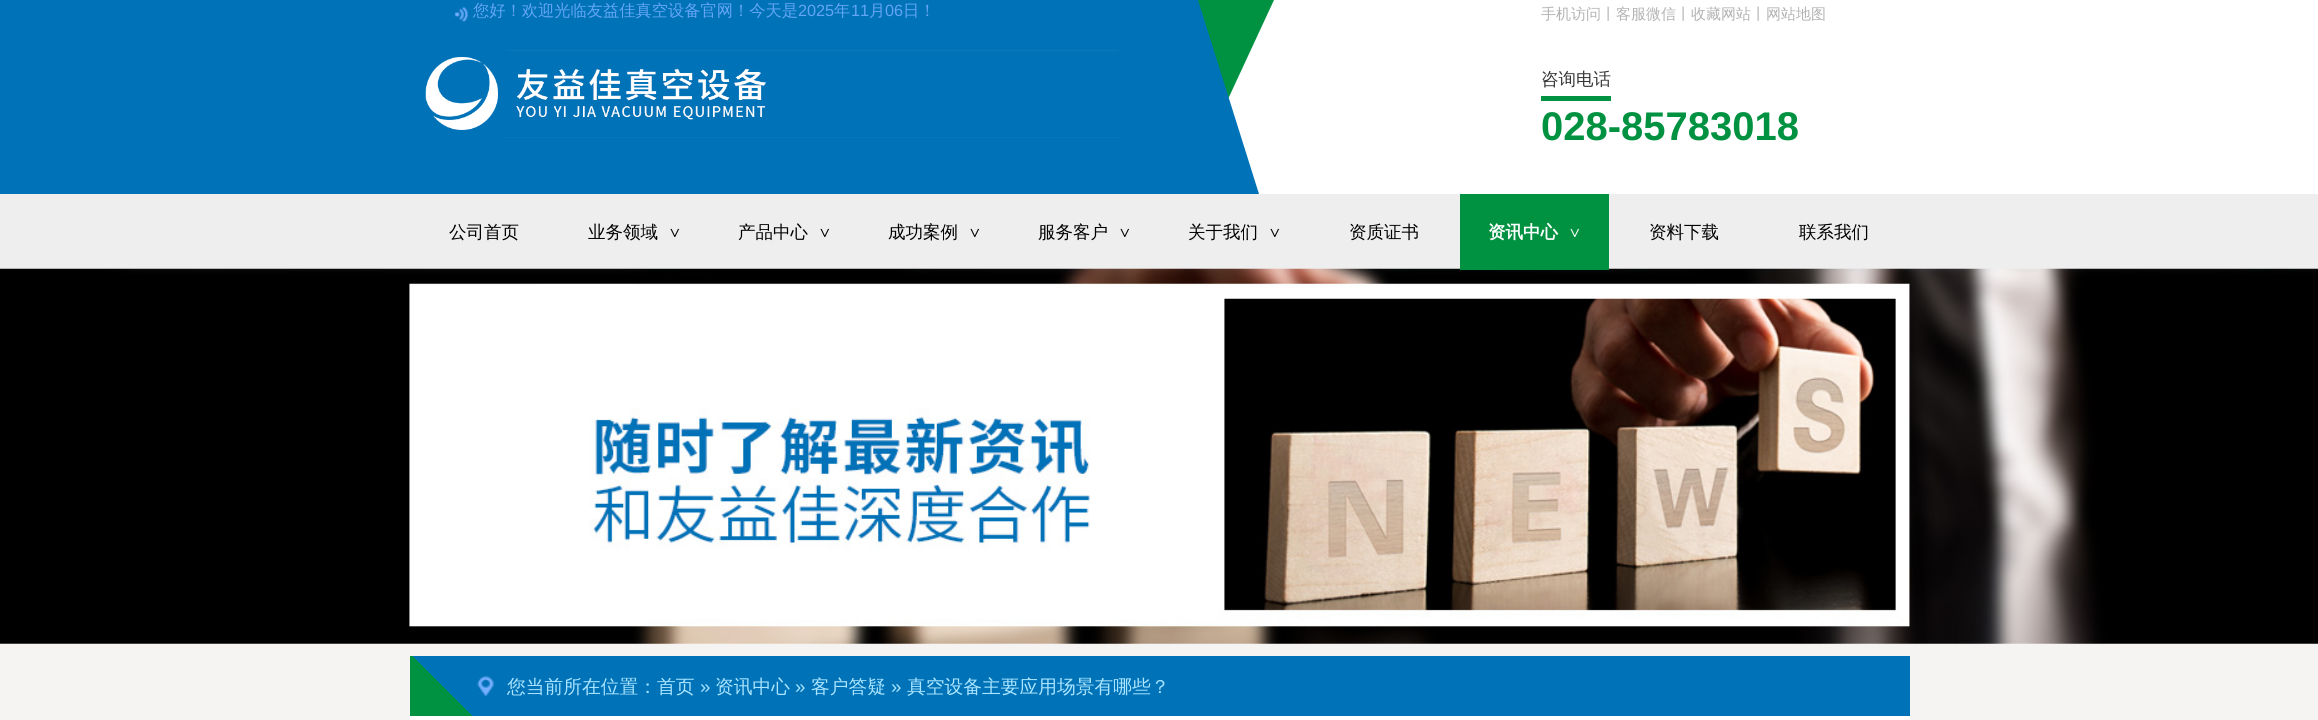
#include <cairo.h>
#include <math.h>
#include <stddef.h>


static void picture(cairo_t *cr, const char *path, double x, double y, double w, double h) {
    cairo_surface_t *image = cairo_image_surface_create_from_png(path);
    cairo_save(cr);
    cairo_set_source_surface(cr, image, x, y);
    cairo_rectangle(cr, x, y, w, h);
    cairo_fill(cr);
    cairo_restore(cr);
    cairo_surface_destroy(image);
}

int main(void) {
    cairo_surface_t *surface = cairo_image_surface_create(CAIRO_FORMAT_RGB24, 2318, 720);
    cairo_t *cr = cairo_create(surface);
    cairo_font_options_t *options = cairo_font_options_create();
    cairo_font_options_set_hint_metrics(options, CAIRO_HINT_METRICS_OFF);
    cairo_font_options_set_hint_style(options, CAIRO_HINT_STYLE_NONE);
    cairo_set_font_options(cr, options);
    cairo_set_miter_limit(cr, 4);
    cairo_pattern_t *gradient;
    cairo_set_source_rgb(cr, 1, 1, 1);
    cairo_paint(cr);
    cairo_set_source_rgb(cr, 0, 0.573, 0.255);
    cairo_new_path(cr);
    cairo_move_to(cr, 45, 0);
    cairo_line_to(cr, 1274, 0);
    cairo_line_to(cr, 1184, 194);
    cairo_line_to(cr, -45, 194);
    cairo_close_path(cr);
    cairo_fill(cr);
    cairo_set_source_rgb(cr, 0, 0.447, 0.722);
    cairo_new_path(cr);
    cairo_move_to(cr, -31, 0);
    cairo_line_to(cr, 1198, 0);
    cairo_line_to(cr, 1259, 194);
    cairo_line_to(cr, 31, 194);
    cairo_close_path(cr);
    cairo_fill(cr);
    cairo_new_path(cr);
    cairo_move_to(cr, 45, 0);
    cairo_line_to(cr, 352, 0);
    cairo_line_to(cr, 262, 194);
    cairo_line_to(cr, -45, 194);
    cairo_close_path(cr);
    cairo_fill(cr);
    picture(cr, "img1.png", 454, 7, 14, 15);
    cairo_select_font_face(cr, "WenQuanYi Zen Hei Medium", CAIRO_FONT_SLANT_NORMAL, CAIRO_FONT_WEIGHT_NORMAL);
    cairo_set_font_size(cr, 16.25);
    cairo_set_source_rgb(cr, 0.388, 0.647, 0.957);
    cairo_move_to(cr, 473, 16);
    cairo_show_text(cr, "您好！欢迎光临友益佳真空设备官网！今天是");
    cairo_select_font_face(cr, "Liberation Sans", CAIRO_FONT_SLANT_NORMAL, CAIRO_FONT_WEIGHT_NORMAL);
    cairo_move_to(cr, 798, 16);
    cairo_show_text(cr, "2025");
    cairo_select_font_face(cr, "WenQuanYi Zen Hei Medium", CAIRO_FONT_SLANT_NORMAL, CAIRO_FONT_WEIGHT_NORMAL);
    cairo_move_to(cr, 834, 16);
    cairo_show_text(cr, "年");
    cairo_select_font_face(cr, "Liberation Sans", CAIRO_FONT_SLANT_NORMAL, CAIRO_FONT_WEIGHT_NORMAL);
    cairo_move_to(cr, 851, 16);
    cairo_show_text(cr, "11");
    cairo_select_font_face(cr, "WenQuanYi Zen Hei Medium", CAIRO_FONT_SLANT_NORMAL, CAIRO_FONT_WEIGHT_NORMAL);
    cairo_move_to(cr, 869, 16);
    cairo_show_text(cr, "月");
    cairo_select_font_face(cr, "Liberation Sans", CAIRO_FONT_SLANT_NORMAL, CAIRO_FONT_WEIGHT_NORMAL);
    cairo_move_to(cr, 885, 16);
    cairo_show_text(cr, "06");
    cairo_select_font_face(cr, "WenQuanYi Zen Hei Medium", CAIRO_FONT_SLANT_NORMAL, CAIRO_FONT_WEIGHT_NORMAL);
    cairo_move_to(cr, 903, 16);
    cairo_show_text(cr, "日！");
    cairo_set_font_size(cr, 15);
    cairo_set_source_rgb(cr, 0.702, 0.702, 0.702);
    cairo_move_to(cr, 1541, 19);
    cairo_show_text(cr, "手机访问");
    cairo_move_to(cr, 1601, 19);
    cairo_show_text(cr, "丨客服微信");
    cairo_move_to(cr, 1676, 19);
    cairo_show_text(cr, "丨收藏网站丨网站地图");
    picture(cr, "img2.png", 425, 50, 694, 88);
    cairo_set_font_size(cr, 17.5);
    cairo_set_source_rgb(cr, 0.212, 0.212, 0.212);
    cairo_move_to(cr, 1541, 85);
    cairo_show_text(cr, "咨询电话");
    cairo_set_source_rgb(cr, 0, 0.573, 0.255);
    cairo_rectangle(cr, 1541, 96, 70, 5);
    cairo_fill(cr);
    cairo_select_font_face(cr, "Liberation Sans", CAIRO_FONT_SLANT_NORMAL, CAIRO_FONT_WEIGHT_BOLD);
    cairo_set_font_size(cr, 40);
    cairo_move_to(cr, 1541, 140);
    cairo_show_text(cr, "028-85783018");
    cairo_set_source_rgb(cr, 0.933, 0.933, 0.933);
    cairo_rectangle(cr, 0, 194, 2318, 75);
    cairo_fill(cr);
    cairo_select_font_face(cr, "WenQuanYi Zen Hei Medium", CAIRO_FONT_SLANT_NORMAL, CAIRO_FONT_WEIGHT_NORMAL);
    cairo_set_font_size(cr, 17.5);
    cairo_set_source_rgb(cr, 0, 0, 0);
    cairo_move_to(cr, 449, 238);
    cairo_show_text(cr, "公司首页");
    cairo_move_to(cr, 588, 238);
    cairo_show_text(cr, "业务领域");
    cairo_select_font_face(cr, "Liberation Serif", CAIRO_FONT_SLANT_NORMAL, CAIRO_FONT_WEIGHT_BOLD);
    cairo_save(cr);
    cairo_translate(cr, 669, 228);
    cairo_rotate(cr, 90 * M_PI / 180);
    cairo_move_to(cr, 0, 0);
    cairo_show_text(cr, ">");
    cairo_restore(cr);
    cairo_select_font_face(cr, "WenQuanYi Zen Hei Medium", CAIRO_FONT_SLANT_NORMAL, CAIRO_FONT_WEIGHT_NORMAL);
    cairo_move_to(cr, 738, 238);
    cairo_show_text(cr, "产品中心");
    cairo_select_font_face(cr, "Liberation Serif", CAIRO_FONT_SLANT_NORMAL, CAIRO_FONT_WEIGHT_BOLD);
    cairo_save(cr);
    cairo_translate(cr, 819, 228);
    cairo_rotate(cr, 90 * M_PI / 180);
    cairo_move_to(cr, 0, 0);
    cairo_show_text(cr, ">");
    cairo_restore(cr);
    cairo_select_font_face(cr, "WenQuanYi Zen Hei Medium", CAIRO_FONT_SLANT_NORMAL, CAIRO_FONT_WEIGHT_NORMAL);
    cairo_move_to(cr, 888, 238);
    cairo_show_text(cr, "成功案例");
    cairo_select_font_face(cr, "Liberation Serif", CAIRO_FONT_SLANT_NORMAL, CAIRO_FONT_WEIGHT_BOLD);
    cairo_save(cr);
    cairo_translate(cr, 969, 228);
    cairo_rotate(cr, 90 * M_PI / 180);
    cairo_move_to(cr, 0, 0);
    cairo_show_text(cr, ">");
    cairo_restore(cr);
    cairo_select_font_face(cr, "WenQuanYi Zen Hei Medium", CAIRO_FONT_SLANT_NORMAL, CAIRO_FONT_WEIGHT_NORMAL);
    cairo_move_to(cr, 1038, 238);
    cairo_show_text(cr, "服务客户");
    cairo_select_font_face(cr, "Liberation Serif", CAIRO_FONT_SLANT_NORMAL, CAIRO_FONT_WEIGHT_BOLD);
    cairo_save(cr);
    cairo_translate(cr, 1119, 228);
    cairo_rotate(cr, 90 * M_PI / 180);
    cairo_move_to(cr, 0, 0);
    cairo_show_text(cr, ">");
    cairo_restore(cr);
    cairo_select_font_face(cr, "WenQuanYi Zen Hei Medium", CAIRO_FONT_SLANT_NORMAL, CAIRO_FONT_WEIGHT_NORMAL);
    cairo_move_to(cr, 1188, 238);
    cairo_show_text(cr, "关于我们");
    cairo_select_font_face(cr, "Liberation Serif", CAIRO_FONT_SLANT_NORMAL, CAIRO_FONT_WEIGHT_BOLD);
    cairo_save(cr);
    cairo_translate(cr, 1269, 228);
    cairo_rotate(cr, 90 * M_PI / 180);
    cairo_move_to(cr, 0, 0);
    cairo_show_text(cr, ">");
    cairo_restore(cr);
    cairo_select_font_face(cr, "WenQuanYi Zen Hei Medium", CAIRO_FONT_SLANT_NORMAL, CAIRO_FONT_WEIGHT_NORMAL);
    cairo_move_to(cr, 1349, 238);
    cairo_show_text(cr, "资质证书");
    picture(cr, "img3.png", 0, 268, 2318, 376);
    cairo_set_source_rgb(cr, 0, 0.573, 0.255);
    cairo_rectangle(cr, 1460, 194, 149, 76);
    cairo_fill(cr);
    cairo_select_font_face(cr, "WenQuanYi Zen Hei", CAIRO_FONT_SLANT_NORMAL, CAIRO_FONT_WEIGHT_BOLD);
    cairo_set_source_rgb(cr, 1, 1, 1);
    cairo_move_to(cr, 1488, 238);
    cairo_show_text(cr, "资讯中心");
    cairo_select_font_face(cr, "Liberation Serif", CAIRO_FONT_SLANT_NORMAL, CAIRO_FONT_WEIGHT_BOLD);
    cairo_save(cr);
    cairo_translate(cr, 1569, 228);
    cairo_rotate(cr, 90 * M_PI / 180);
    cairo_move_to(cr, 0, 0);
    cairo_show_text(cr, ">");
    cairo_restore(cr);
    cairo_select_font_face(cr, "WenQuanYi Zen Hei Medium", CAIRO_FONT_SLANT_NORMAL, CAIRO_FONT_WEIGHT_NORMAL);
    cairo_set_source_rgb(cr, 0, 0, 0);
    cairo_move_to(cr, 1649, 238);
    cairo_show_text(cr, "资料下载");
    cairo_move_to(cr, 1799, 238);
    cairo_show_text(cr, "联系我们");
    cairo_set_source_rgb(cr, 0.961, 0.953, 0.953);
    cairo_rectangle(cr, 0, 644, 2318, 76);
    cairo_fill(cr);
    gradient = cairo_pattern_create_linear(770, 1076, 1550, 296);
    cairo_pattern_add_color_stop_rgba(gradient, 0.04, 0, 0.573, 0.255, 1);
    cairo_pattern_add_color_stop_rgba(gradient, 0.04, 0, 0.447, 0.722, 1);
    cairo_set_source(cr, gradient);
    cairo_pattern_destroy(gradient);
    cairo_rectangle(cr, 410, 656, 1500, 60);
    cairo_fill(cr);
    picture(cr, "img4.png", 477, 676, 17, 21);
    cairo_set_font_size(cr, 18.75);
    cairo_set_source_rgb(cr, 0.663, 0.898, 1);
    cairo_move_to(cr, 507, 693);
    cairo_show_text(cr, "您当前所在位置：首页");
    cairo_select_font_face(cr, "Liberation Sans", CAIRO_FONT_SLANT_NORMAL, CAIRO_FONT_WEIGHT_NORMAL);
    cairo_move_to(cr, 700, 693);
    cairo_show_text(cr, "»");
    cairo_select_font_face(cr, "WenQuanYi Zen Hei Medium", CAIRO_FONT_SLANT_NORMAL, CAIRO_FONT_WEIGHT_NORMAL);
    cairo_move_to(cr, 715, 693);
    cairo_show_text(cr, "资讯中心");
    cairo_select_font_face(cr, "Liberation Sans", CAIRO_FONT_SLANT_NORMAL, CAIRO_FONT_WEIGHT_NORMAL);
    cairo_move_to(cr, 795, 693);
    cairo_show_text(cr, "»");
    cairo_select_font_face(cr, "WenQuanYi Zen Hei Medium", CAIRO_FONT_SLANT_NORMAL, CAIRO_FONT_WEIGHT_NORMAL);
    cairo_move_to(cr, 811, 693);
    cairo_show_text(cr, "客户答疑");
    cairo_select_font_face(cr, "Liberation Sans", CAIRO_FONT_SLANT_NORMAL, CAIRO_FONT_WEIGHT_NORMAL);
    cairo_move_to(cr, 891, 693);
    cairo_show_text(cr, "»");
    cairo_select_font_face(cr, "WenQuanYi Zen Hei Medium", CAIRO_FONT_SLANT_NORMAL, CAIRO_FONT_WEIGHT_NORMAL);
    cairo_move_to(cr, 907, 693);
    cairo_show_text(cr, "真空设备主要应用场景有哪些？");
    cairo_set_source_rgb(cr, 1, 1, 1);
    cairo_rectangle(cr, 410, 716, 1500, 4);
    cairo_fill(cr);
    cairo_surface_write_to_png(surface, "page.png");
    cairo_font_options_destroy(options);
    cairo_destroy(cr);
    cairo_surface_destroy(surface);
    return 0;
}
